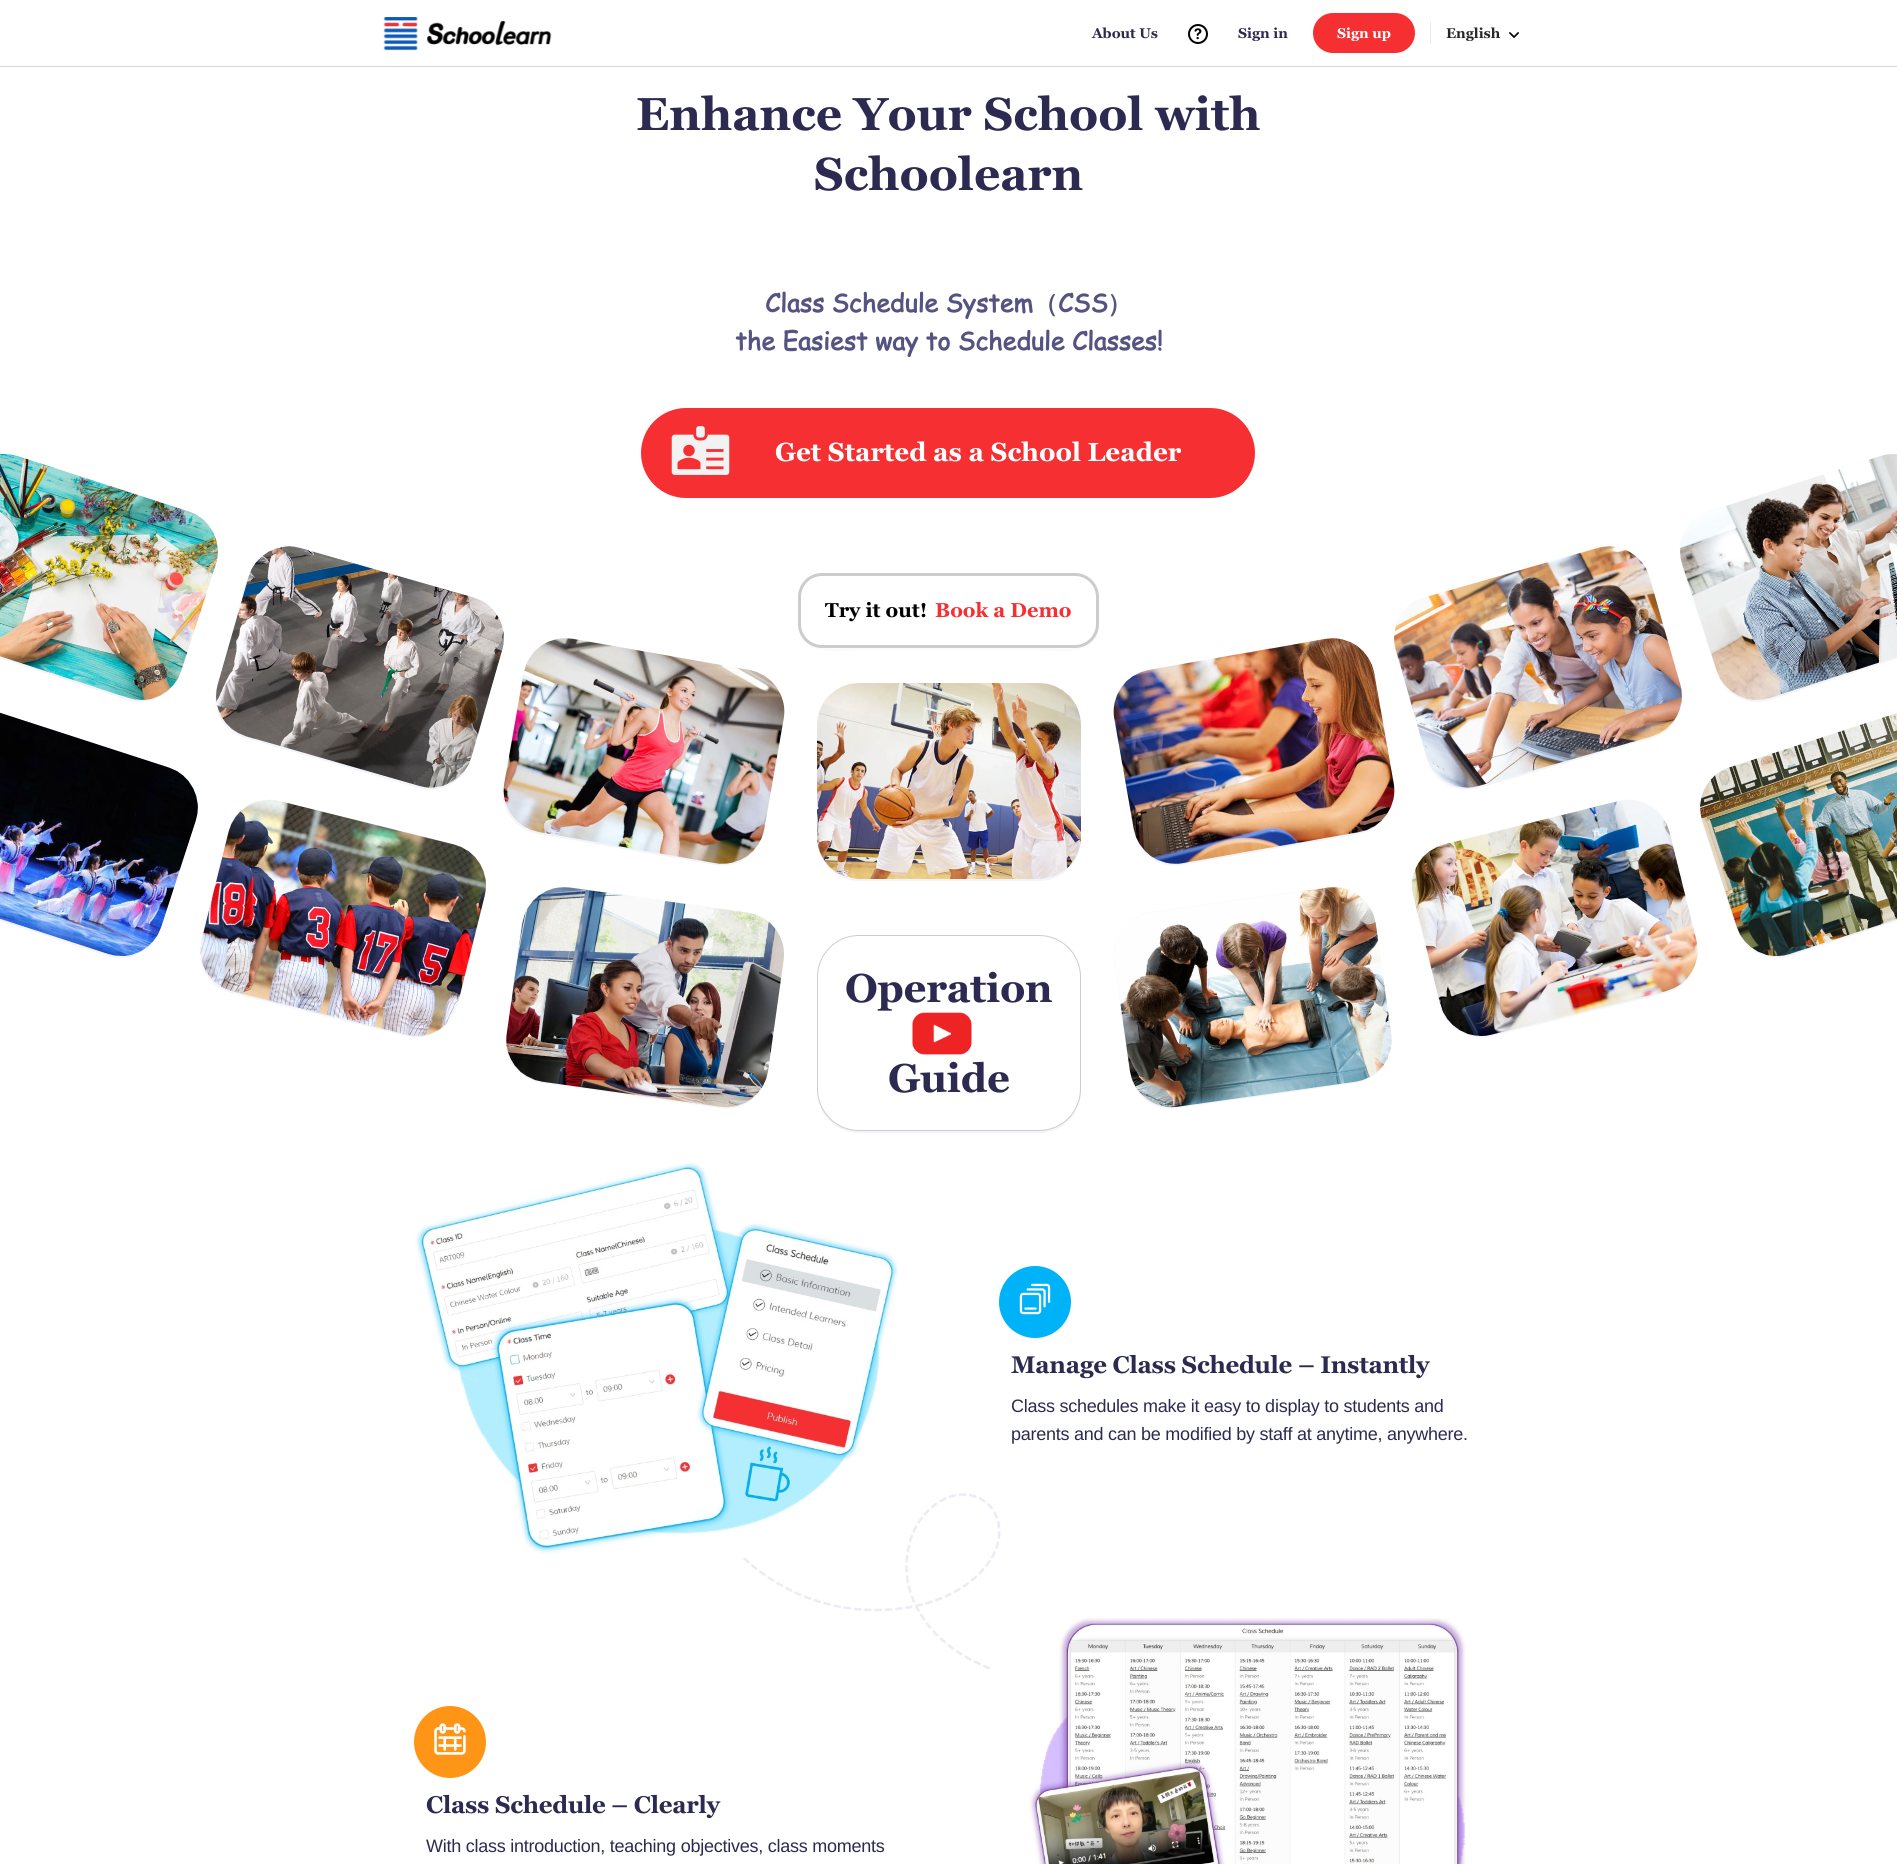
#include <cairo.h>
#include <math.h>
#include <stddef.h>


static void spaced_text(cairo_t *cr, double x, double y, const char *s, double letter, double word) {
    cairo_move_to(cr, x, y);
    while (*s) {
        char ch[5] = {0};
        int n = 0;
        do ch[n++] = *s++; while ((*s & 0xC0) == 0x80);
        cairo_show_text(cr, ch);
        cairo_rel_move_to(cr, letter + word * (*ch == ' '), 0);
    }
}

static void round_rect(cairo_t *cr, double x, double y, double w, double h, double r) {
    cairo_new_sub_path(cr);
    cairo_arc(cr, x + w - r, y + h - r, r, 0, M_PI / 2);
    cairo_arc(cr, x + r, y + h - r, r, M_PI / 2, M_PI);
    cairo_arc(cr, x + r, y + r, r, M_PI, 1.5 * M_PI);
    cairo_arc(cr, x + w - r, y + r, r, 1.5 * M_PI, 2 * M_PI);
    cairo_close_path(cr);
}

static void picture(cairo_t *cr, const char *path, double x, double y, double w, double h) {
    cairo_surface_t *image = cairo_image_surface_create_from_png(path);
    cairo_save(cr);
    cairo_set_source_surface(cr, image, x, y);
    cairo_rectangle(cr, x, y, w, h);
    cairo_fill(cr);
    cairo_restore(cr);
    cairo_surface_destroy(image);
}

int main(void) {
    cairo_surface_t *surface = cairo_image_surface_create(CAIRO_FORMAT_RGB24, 1897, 1864);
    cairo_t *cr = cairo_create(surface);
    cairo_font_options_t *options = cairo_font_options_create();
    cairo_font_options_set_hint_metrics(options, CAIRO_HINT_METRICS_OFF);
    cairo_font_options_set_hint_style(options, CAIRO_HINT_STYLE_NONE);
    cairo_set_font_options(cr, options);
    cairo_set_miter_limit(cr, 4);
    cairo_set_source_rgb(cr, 1, 1, 1);
    cairo_paint(cr);
    cairo_set_source_rgb(cr, 0.827, 0.843, 0.925);
    cairo_rectangle(cr, 0, 66, 1897, 1);
    cairo_fill(cr);
    picture(cr, "img1.png", 383, 17, 169, 34);
    cairo_select_font_face(cr, "Georgia", CAIRO_FONT_SLANT_NORMAL, CAIRO_FONT_WEIGHT_BOLD);
    cairo_set_font_size(cr, 14);
    cairo_set_source_rgb(cr, 0.173, 0.165, 0.314);
    cairo_move_to(cr, 1092, 38);
    cairo_show_text(cr, "About Us");
    picture(cr, "img2.png", 1188, 24, 20, 20);
    cairo_move_to(cr, 1238, 38);
    cairo_show_text(cr, "Sign in");
    cairo_set_source_rgb(cr, 0.961, 0.188, 0.196);
    round_rect(cr, 1313, 13, 102, 40, 20);
    cairo_fill(cr);
    cairo_set_source_rgb(cr, 1, 1, 1);
    cairo_move_to(cr, 1337, 38);
    cairo_show_text(cr, "Sign up");
    cairo_set_source_rgb(cr, 0.91, 0.91, 0.91);
    cairo_rectangle(cr, 1430, 22, 1, 22);
    cairo_fill(cr);
    cairo_set_source_rgb(cr, 0.149, 0.149, 0.149);
    cairo_move_to(cr, 1446, 38);
    cairo_show_text(cr, "English");
    picture(cr, "img3.png", 1509, 32, 10, 6);
    cairo_set_font_size(cr, 46);
    cairo_set_source_rgb(cr, 0.173, 0.165, 0.314);
    cairo_move_to(cr, 636, 130);
    cairo_show_text(cr, "Enhance Your School with");
    cairo_move_to(cr, 814, 190);
    cairo_show_text(cr, "Schoolearn");
    cairo_select_font_face(cr, "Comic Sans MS", CAIRO_FONT_SLANT_NORMAL, CAIRO_FONT_WEIGHT_BOLD);
    cairo_set_font_size(cr, 25);
    cairo_set_source_rgb(cr, 0.329, 0.325, 0.51);
    cairo_move_to(cr, 765, 312);
    cairo_show_text(cr, "Class Schedule System");
    cairo_select_font_face(cr, "WenQuanYi Zen Hei", CAIRO_FONT_SLANT_NORMAL, CAIRO_FONT_WEIGHT_BOLD);
    cairo_move_to(cr, 1033, 312);
    cairo_show_text(cr, "（");
    cairo_select_font_face(cr, "Comic Sans MS", CAIRO_FONT_SLANT_NORMAL, CAIRO_FONT_WEIGHT_BOLD);
    cairo_move_to(cr, 1058, 312);
    cairo_show_text(cr, "CSS");
    cairo_select_font_face(cr, "WenQuanYi Zen Hei", CAIRO_FONT_SLANT_NORMAL, CAIRO_FONT_WEIGHT_BOLD);
    cairo_move_to(cr, 1107, 312);
    cairo_show_text(cr, "）");
    cairo_select_font_face(cr, "Comic Sans MS", CAIRO_FONT_SLANT_NORMAL, CAIRO_FONT_WEIGHT_BOLD);
    cairo_move_to(cr, 735, 350);
    cairo_show_text(cr, "the Easiest way to Schedule Classes!");
    cairo_set_source_rgb(cr, 0.961, 0.188, 0.196);
    round_rect(cr, 641, 408, 614, 90, 45);
    cairo_fill(cr);
    picture(cr, "img4.png", 671, 426, 59, 49);
    cairo_select_font_face(cr, "Georgia", CAIRO_FONT_SLANT_NORMAL, CAIRO_FONT_WEIGHT_BOLD);
    cairo_set_font_size(cr, 26);
    cairo_set_source_rgb(cr, 1, 1, 1);
    cairo_move_to(cr, 775, 461);
    cairo_show_text(cr, "Get Started as a School Leader");
    cairo_set_source_rgb(cr, 0.984, 0.984, 0.984);
    cairo_new_path(cr);
    cairo_move_to(cr, 798, 624);
    cairo_curve_to(cr, 798, 660, 842, 650, 864, 650);
    cairo_line_to(cr, 1033, 650);
    cairo_curve_to(cr, 1055, 650, 1099, 660, 1099, 624);
    cairo_curve_to(cr, 1099, 637, 1088, 648, 1075, 648);
    cairo_line_to(cr, 822, 648);
    cairo_curve_to(cr, 809, 648, 798, 637, 798, 624);
    cairo_close_path(cr);
    cairo_fill(cr);
    round_rect(cr, 799.5, 574.5, 298, 72, 22.5);
    cairo_set_source_rgb(cr, 0.8, 0.8, 0.8);
    cairo_set_line_width(cr, 3);
    cairo_stroke(cr);
    cairo_set_font_size(cr, 20);
    cairo_set_source_rgb(cr, 0, 0, 0);
    cairo_move_to(cr, 825, 617);
    cairo_show_text(cr, "Try it out!");
    cairo_set_source_rgb(cr, 0.961, 0.188, 0.196);
    cairo_move_to(cr, 935, 617);
    cairo_show_text(cr, "Book a Demo");
    cairo_set_source_rgb(cr, 0.949, 0.957, 0.976);
    cairo_new_path(cr);
    cairo_move_to(cr, -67, 579);
    cairo_line_to(cr, -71, 591);
    cairo_curve_to(cr, -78, 613, -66, 637, -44, 644);
    cairo_line_to(cr, 127, 700);
    cairo_curve_to(cr, 149, 707, 173, 695, 180, 673);
    cairo_line_to(cr, 215, 566);
    cairo_line_to(cr, 216, 561);
    cairo_line_to(cr, 181, 671);
    cairo_curve_to(cr, 174, 693, 150, 705, 128, 698);
    cairo_line_to(cr, -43, 642);
    cairo_curve_to(cr, -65, 635, -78, 611, -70, 589);
    cairo_close_path(cr);
    cairo_fill(cr);
    cairo_set_source_rgb(cr, 0.969, 0.973, 1);
    cairo_new_path(cr);
    cairo_move_to(cr, 17, 456);
    cairo_line_to(cr, 188, 511);
    cairo_curve_to(cr, 210, 518, 223, 542, 215, 564);
    cairo_line_to(cr, 181, 671);
    cairo_curve_to(cr, 174, 693, 150, 705, 128, 698);
    cairo_line_to(cr, -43, 642);
    cairo_curve_to(cr, -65, 635, -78, 611, -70, 589);
    cairo_line_to(cr, -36, 483);
    cairo_curve_to(cr, -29, 461, -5, 449, 17, 456);
    cairo_close_path(cr);
    cairo_fill(cr);
    picture(cr, "img5.png", 0, 454, 218, 246);
    cairo_set_source_rgb(cr, 0.949, 0.957, 0.976);
    cairo_set_fill_rule(cr, CAIRO_FILL_RULE_EVEN_ODD);
    cairo_new_path(cr);
    cairo_move_to(cr, 251, 569);
    cairo_line_to(cr, 247, 578);
    cairo_line_to(cr, 228, 647);
    cairo_line_to(cr, 248, 576);
    cairo_close_path(cr);
    cairo_move_to(cr, 216, 690);
    cairo_curve_to(cr, 212, 711, 224, 732, 245, 738);
    cairo_line_to(cr, 418, 788);
    cairo_curve_to(cr, 440, 794, 461, 783, 469, 763);
    cairo_curve_to(cr, 460, 782, 439, 791, 419, 786);
    cairo_line_to(cr, 246, 736);
    cairo_curve_to(cr, 226, 730, 213, 710, 216, 690);
    cairo_close_path(cr);
    cairo_fill(cr);
    cairo_set_source_rgb(cr, 0.969, 0.973, 1);
    cairo_set_fill_rule(cr, CAIRO_FILL_RULE_WINDING);
    cairo_new_path(cr);
    cairo_move_to(cr, 300, 548);
    cairo_line_to(cr, 473, 597);
    cairo_curve_to(cr, 495, 604, 508, 627, 502, 649);
    cairo_line_to(cr, 471, 757);
    cairo_curve_to(cr, 465, 779, 441, 792, 419, 786);
    cairo_line_to(cr, 246, 736);
    cairo_curve_to(cr, 224, 730, 211, 706, 217, 684);
    cairo_line_to(cr, 248, 576);
    cairo_curve_to(cr, 254, 554, 278, 541, 300, 548);
    cairo_close_path(cr);
    cairo_fill(cr);
    picture(cr, "img6.png", 216, 546, 288, 242);
    cairo_set_source_rgb(cr, 0.949, 0.957, 0.976);
    cairo_set_fill_rule(cr, CAIRO_FILL_RULE_EVEN_ODD);
    cairo_new_path(cr);
    cairo_move_to(cr, 517, 709);
    cairo_line_to(cr, 503, 785);
    cairo_curve_to(cr, 499, 808, 515, 830, 538, 834);
    cairo_line_to(cr, 715, 865);
    cairo_curve_to(cr, 736, 869, 756, 856, 762, 836);
    cairo_curve_to(cr, 755, 855, 735, 866, 715, 863);
    cairo_line_to(cr, 538, 832);
    cairo_curve_to(cr, 515, 828, 500, 806, 504, 783);
    cairo_close_path(cr);
    cairo_move_to(cr, 781, 733);
    cairo_line_to(cr, 783, 718);
    cairo_close_path(cr);
    cairo_fill(cr);
    cairo_set_source_rgb(cr, 0.969, 0.973, 1);
    cairo_set_fill_rule(cr, CAIRO_FILL_RULE_WINDING);
    cairo_new_path(cr);
    cairo_move_to(cr, 572, 639);
    cairo_line_to(cr, 749, 670);
    cairo_curve_to(cr, 772, 674, 787, 696, 783, 718);
    cairo_line_to(cr, 764, 829);
    cairo_curve_to(cr, 760, 852, 738, 867, 715, 863);
    cairo_line_to(cr, 538, 832);
    cairo_curve_to(cr, 515, 828, 500, 806, 504, 783);
    cairo_line_to(cr, 523, 673);
    cairo_curve_to(cr, 527, 650, 549, 635, 572, 639);
    cairo_close_path(cr);
    cairo_fill(cr);
    picture(cr, "img7.png", 503, 638, 282, 226);
    cairo_set_source_rgb(cr, 0.949, 0.957, 0.976);
    cairo_new_path(cr);
    cairo_move_to(cr, 817, 837);
    cairo_line_to(cr, 817, 839);
    cairo_curve_to(cr, 817, 862, 836, 881, 859, 881);
    cairo_line_to(cr, 1039, 881);
    cairo_curve_to(cr, 1062, 881, 1081, 862, 1081, 839);
    cairo_line_to(cr, 1081, 837);
    cairo_curve_to(cr, 1081, 860, 1062, 879, 1039, 879);
    cairo_line_to(cr, 859, 879);
    cairo_curve_to(cr, 836, 879, 817, 860, 817, 837);
    cairo_close_path(cr);
    cairo_fill(cr);
    cairo_set_source_rgb(cr, 0.969, 0.973, 1);
    round_rect(cr, 817, 683, 264, 196, 42);
    cairo_fill(cr);
    picture(cr, "img8.png", 817, 683, 264, 196);
    cairo_set_source_rgb(cr, 0.949, 0.957, 0.976);
    cairo_set_fill_rule(cr, CAIRO_FILL_RULE_EVEN_ODD);
    cairo_new_path(cr);
    cairo_move_to(cr, 1114, 718);
    cairo_line_to(cr, 1116, 733);
    cairo_close_path(cr);
    cairo_move_to(cr, 1135, 836);
    cairo_curve_to(cr, 1141, 856, 1161, 869, 1182, 865);
    cairo_line_to(cr, 1359, 834);
    cairo_curve_to(cr, 1382, 830, 1398, 808, 1394, 785);
    cairo_line_to(cr, 1380, 709);
    cairo_line_to(cr, 1393, 783);
    cairo_curve_to(cr, 1397, 806, 1382, 828, 1359, 832);
    cairo_line_to(cr, 1182, 863);
    cairo_curve_to(cr, 1162, 866, 1142, 855, 1135, 836);
    cairo_close_path(cr);
    cairo_fill(cr);
    cairo_set_source_rgb(cr, 0.969, 0.973, 1);
    cairo_set_fill_rule(cr, CAIRO_FILL_RULE_WINDING);
    cairo_new_path(cr);
    cairo_move_to(cr, 1148, 670);
    cairo_line_to(cr, 1325, 639);
    cairo_curve_to(cr, 1348, 635, 1370, 650, 1374, 673);
    cairo_line_to(cr, 1393, 783);
    cairo_curve_to(cr, 1397, 806, 1382, 828, 1359, 832);
    cairo_line_to(cr, 1182, 863);
    cairo_curve_to(cr, 1159, 867, 1137, 852, 1133, 829);
    cairo_line_to(cr, 1114, 718);
    cairo_curve_to(cr, 1110, 696, 1125, 674, 1148, 670);
    cairo_close_path(cr);
    cairo_fill(cr);
    picture(cr, "img9.png", 1113, 638, 282, 226);
    cairo_set_source_rgb(cr, 0.949, 0.957, 0.976);
    cairo_set_fill_rule(cr, CAIRO_FILL_RULE_EVEN_ODD);
    cairo_new_path(cr);
    cairo_move_to(cr, 1428, 763);
    cairo_curve_to(cr, 1436, 783, 1457, 794, 1479, 788);
    cairo_line_to(cr, 1652, 738);
    cairo_curve_to(cr, 1673, 732, 1685, 711, 1681, 690);
    cairo_curve_to(cr, 1684, 710, 1671, 730, 1651, 736);
    cairo_line_to(cr, 1478, 786);
    cairo_curve_to(cr, 1458, 791, 1437, 782, 1428, 763);
    cairo_close_path(cr);
    cairo_move_to(cr, 1669, 647);
    cairo_line_to(cr, 1650, 578);
    cairo_line_to(cr, 1646, 569);
    cairo_line_to(cr, 1649, 576);
    cairo_close_path(cr);
    cairo_fill(cr);
    cairo_set_source_rgb(cr, 0.969, 0.973, 1);
    cairo_set_fill_rule(cr, CAIRO_FILL_RULE_WINDING);
    cairo_new_path(cr);
    cairo_move_to(cr, 1424, 597);
    cairo_line_to(cr, 1597, 548);
    cairo_curve_to(cr, 1619, 541, 1643, 554, 1649, 576);
    cairo_line_to(cr, 1680, 684);
    cairo_curve_to(cr, 1686, 706, 1673, 730, 1651, 736);
    cairo_line_to(cr, 1478, 786);
    cairo_curve_to(cr, 1456, 792, 1432, 779, 1426, 757);
    cairo_line_to(cr, 1395, 649);
    cairo_curve_to(cr, 1389, 627, 1402, 604, 1424, 597);
    cairo_close_path(cr);
    cairo_fill(cr);
    picture(cr, "img10.png", 1394, 546, 288, 242);
    cairo_set_source_rgb(cr, 0.949, 0.957, 0.976);
    cairo_new_path(cr);
    cairo_move_to(cr, 1681, 561);
    cairo_line_to(cr, 1682, 566);
    cairo_line_to(cr, 1717, 673);
    cairo_curve_to(cr, 1724, 695, 1748, 707, 1770, 700);
    cairo_line_to(cr, 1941, 644);
    cairo_curve_to(cr, 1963, 637, 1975, 613, 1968, 591);
    cairo_line_to(cr, 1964, 579);
    cairo_line_to(cr, 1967, 589);
    cairo_curve_to(cr, 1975, 611, 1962, 635, 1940, 642);
    cairo_line_to(cr, 1769, 698);
    cairo_curve_to(cr, 1747, 705, 1723, 693, 1716, 671);
    cairo_close_path(cr);
    cairo_fill(cr);
    cairo_set_source_rgb(cr, 0.969, 0.973, 1);
    cairo_new_path(cr);
    cairo_move_to(cr, 1709, 511);
    cairo_line_to(cr, 1880, 456);
    cairo_curve_to(cr, 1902, 449, 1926, 461, 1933, 483);
    cairo_line_to(cr, 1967, 589);
    cairo_curve_to(cr, 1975, 611, 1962, 635, 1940, 642);
    cairo_line_to(cr, 1769, 698);
    cairo_curve_to(cr, 1747, 705, 1723, 693, 1716, 671);
    cairo_line_to(cr, 1682, 564);
    cairo_curve_to(cr, 1674, 542, 1687, 518, 1709, 511);
    cairo_close_path(cr);
    cairo_fill(cr);
    picture(cr, "img11.png", 1680, 454, 217, 246);
    cairo_set_source_rgb(cr, 0.949, 0.957, 0.976);
    cairo_new_path(cr);
    cairo_move_to(cr, -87, 835);
    cairo_line_to(cr, -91, 847);
    cairo_curve_to(cr, -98, 869, -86, 893, -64, 900);
    cairo_line_to(cr, 107, 956);
    cairo_curve_to(cr, 129, 963, 153, 951, 160, 929);
    cairo_line_to(cr, 195, 822);
    cairo_line_to(cr, 196, 817);
    cairo_line_to(cr, 161, 927);
    cairo_curve_to(cr, 154, 949, 130, 961, 108, 954);
    cairo_line_to(cr, -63, 898);
    cairo_curve_to(cr, -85, 891, -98, 867, -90, 845);
    cairo_close_path(cr);
    cairo_fill(cr);
    cairo_set_source_rgb(cr, 0.969, 0.973, 1);
    cairo_new_path(cr);
    cairo_move_to(cr, -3, 712);
    cairo_line_to(cr, 168, 767);
    cairo_curve_to(cr, 190, 774, 203, 798, 195, 820);
    cairo_line_to(cr, 161, 927);
    cairo_curve_to(cr, 154, 949, 130, 961, 108, 954);
    cairo_line_to(cr, -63, 898);
    cairo_curve_to(cr, -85, 891, -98, 867, -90, 845);
    cairo_line_to(cr, -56, 739);
    cairo_curve_to(cr, -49, 717, -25, 705, -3, 712);
    cairo_close_path(cr);
    cairo_fill(cr);
    picture(cr, "img12.png", 0, 712, 198, 244);
    cairo_set_source_rgb(cr, 0.949, 0.957, 0.976);
    cairo_new_path(cr);
    cairo_move_to(cr, 200, 948);
    cairo_curve_to(cr, 198, 968, 211, 988, 231, 993);
    cairo_line_to(cr, 406, 1036);
    cairo_curve_to(cr, 428, 1042, 451, 1028, 457, 1006);
    cairo_line_to(cr, 485, 894);
    cairo_line_to(cr, 457, 1004);
    cairo_curve_to(cr, 452, 1026, 429, 1040, 406, 1034);
    cairo_line_to(cr, 232, 991);
    cairo_curve_to(cr, 212, 986, 199, 968, 200, 948);
    cairo_close_path(cr);
    cairo_fill(cr);
    cairo_set_source_rgb(cr, 0.969, 0.973, 1);
    cairo_new_path(cr);
    cairo_move_to(cr, 279, 801);
    cairo_line_to(cr, 454, 844);
    cairo_curve_to(cr, 476, 850, 490, 873, 484, 895);
    cairo_line_to(cr, 457, 1004);
    cairo_curve_to(cr, 452, 1026, 429, 1040, 406, 1034);
    cairo_line_to(cr, 232, 991);
    cairo_curve_to(cr, 209, 985, 195, 962, 201, 940);
    cairo_line_to(cr, 228, 831);
    cairo_curve_to(cr, 234, 809, 257, 795, 279, 801);
    cairo_close_path(cr);
    cairo_fill(cr);
    picture(cr, "img13.png", 200, 799, 286, 237);
    cairo_set_source_rgb(cr, 0.949, 0.957, 0.976);
    cairo_set_fill_rule(cr, CAIRO_FILL_RULE_EVEN_ODD);
    cairo_new_path(cr);
    cairo_move_to(cr, 523, 918);
    cairo_line_to(cr, 521, 925);
    cairo_line_to(cr, 509, 1013);
    cairo_close_path(cr);
    cairo_move_to(cr, 506, 1038);
    cairo_curve_to(cr, 504, 1060, 520, 1080, 542, 1083);
    cairo_line_to(cr, 720, 1108);
    cairo_curve_to(cr, 742, 1112, 762, 1097, 766, 1076);
    cairo_curve_to(cr, 761, 1096, 741, 1109, 720, 1106);
    cairo_line_to(cr, 542, 1081);
    cairo_curve_to(cr, 520, 1078, 505, 1059, 506, 1038);
    cairo_close_path(cr);
    cairo_move_to(cr, 778, 998);
    cairo_line_to(cr, 783, 959);
    cairo_close_path(cr);
    cairo_fill(cr);
    cairo_set_source_rgb(cr, 0.969, 0.973, 1);
    cairo_set_fill_rule(cr, CAIRO_FILL_RULE_WINDING);
    cairo_new_path(cr);
    cairo_move_to(cr, 569, 887);
    cairo_line_to(cr, 747, 912);
    cairo_curve_to(cr, 770, 916, 786, 937, 783, 960);
    cairo_line_to(cr, 768, 1071);
    cairo_curve_to(cr, 764, 1094, 743, 1110, 720, 1106);
    cairo_line_to(cr, 542, 1081);
    cairo_curve_to(cr, 519, 1078, 503, 1057, 506, 1034);
    cairo_line_to(cr, 522, 923);
    cairo_curve_to(cr, 525, 900, 546, 884, 569, 887);
    cairo_close_path(cr);
    cairo_fill(cr);
    picture(cr, "img14.png", 506, 887, 278, 221);
    cairo_set_source_rgb(cr, 0.949, 0.957, 0.976);
    cairo_new_path(cr);
    cairo_move_to(cr, 817, 1089);
    cairo_line_to(cr, 817, 1091);
    cairo_curve_to(cr, 817, 1114, 836, 1133, 859, 1133);
    cairo_line_to(cr, 1039, 1133);
    cairo_curve_to(cr, 1062, 1133, 1081, 1114, 1081, 1091);
    cairo_line_to(cr, 1081, 1089);
    cairo_curve_to(cr, 1081, 1112, 1062, 1131, 1039, 1131);
    cairo_line_to(cr, 859, 1131);
    cairo_curve_to(cr, 836, 1131, 817, 1112, 817, 1089);
    cairo_close_path(cr);
    cairo_fill(cr);
    round_rect(cr, 817.5, 935.5, 263, 195, 41.5);
    cairo_set_source_rgb(cr, 0.8, 0.8, 0.8);
    cairo_set_line_width(cr, 1);
    cairo_stroke(cr);
    cairo_set_font_size(cr, 40);
    cairo_set_source_rgb(cr, 0.173, 0.165, 0.314);
    spaced_text(cr, 845, 1002, "Operation", -0.25, 0);
    picture(cr, "img15.png", 912, 1012, 60, 43);
    spaced_text(cr, 888, 1092, "Guide", -0.25, 0);
    cairo_set_source_rgb(cr, 0.949, 0.957, 0.976);
    cairo_set_fill_rule(cr, CAIRO_FILL_RULE_EVEN_ODD);
    cairo_new_path(cr);
    cairo_move_to(cr, 1114, 959);
    cairo_line_to(cr, 1119, 998);
    cairo_close_path(cr);
    cairo_move_to(cr, 1131, 1076);
    cairo_curve_to(cr, 1135, 1097, 1155, 1112, 1177, 1108);
    cairo_line_to(cr, 1355, 1083);
    cairo_curve_to(cr, 1377, 1080, 1393, 1060, 1391, 1038);
    cairo_curve_to(cr, 1392, 1059, 1377, 1078, 1355, 1081);
    cairo_line_to(cr, 1177, 1106);
    cairo_curve_to(cr, 1156, 1109, 1136, 1096, 1131, 1076);
    cairo_close_path(cr);
    cairo_move_to(cr, 1388, 1013);
    cairo_line_to(cr, 1376, 925);
    cairo_line_to(cr, 1374, 918);
    cairo_close_path(cr);
    cairo_fill(cr);
    cairo_set_source_rgb(cr, 0.969, 0.973, 1);
    cairo_set_fill_rule(cr, CAIRO_FILL_RULE_WINDING);
    cairo_new_path(cr);
    cairo_move_to(cr, 1150, 912);
    cairo_line_to(cr, 1328, 887);
    cairo_curve_to(cr, 1351, 884, 1372, 900, 1375, 923);
    cairo_line_to(cr, 1391, 1034);
    cairo_curve_to(cr, 1394, 1057, 1378, 1078, 1355, 1081);
    cairo_line_to(cr, 1177, 1106);
    cairo_curve_to(cr, 1154, 1110, 1133, 1094, 1129, 1071);
    cairo_line_to(cr, 1114, 960);
    cairo_curve_to(cr, 1111, 937, 1127, 916, 1150, 912);
    cairo_close_path(cr);
    cairo_fill(cr);
    picture(cr, "img16.png", 1114, 887, 278, 221);
    cairo_set_source_rgb(cr, 0.949, 0.957, 0.976);
    cairo_new_path(cr);
    cairo_move_to(cr, 1412, 894);
    cairo_line_to(cr, 1440, 1006);
    cairo_curve_to(cr, 1446, 1028, 1469, 1042, 1491, 1036);
    cairo_line_to(cr, 1666, 993);
    cairo_curve_to(cr, 1686, 988, 1699, 968, 1697, 948);
    cairo_curve_to(cr, 1698, 968, 1685, 986, 1665, 991);
    cairo_line_to(cr, 1491, 1034);
    cairo_curve_to(cr, 1468, 1040, 1445, 1026, 1440, 1004);
    cairo_close_path(cr);
    cairo_fill(cr);
    cairo_set_source_rgb(cr, 0.969, 0.973, 1);
    cairo_new_path(cr);
    cairo_move_to(cr, 1443, 844);
    cairo_line_to(cr, 1618, 801);
    cairo_curve_to(cr, 1640, 795, 1663, 809, 1669, 831);
    cairo_line_to(cr, 1696, 940);
    cairo_curve_to(cr, 1702, 962, 1688, 985, 1665, 991);
    cairo_line_to(cr, 1491, 1034);
    cairo_curve_to(cr, 1468, 1040, 1445, 1026, 1440, 1004);
    cairo_line_to(cr, 1413, 895);
    cairo_curve_to(cr, 1407, 873, 1421, 850, 1443, 844);
    cairo_close_path(cr);
    cairo_fill(cr);
    picture(cr, "img17.png", 1412, 800, 286, 236);
    cairo_set_source_rgb(cr, 0.949, 0.957, 0.976);
    cairo_new_path(cr);
    cairo_move_to(cr, 1701, 817);
    cairo_line_to(cr, 1702, 822);
    cairo_line_to(cr, 1737, 929);
    cairo_curve_to(cr, 1744, 951, 1768, 963, 1790, 956);
    cairo_line_to(cr, 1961, 900);
    cairo_curve_to(cr, 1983, 893, 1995, 869, 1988, 847);
    cairo_line_to(cr, 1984, 835);
    cairo_line_to(cr, 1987, 845);
    cairo_curve_to(cr, 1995, 867, 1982, 891, 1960, 898);
    cairo_line_to(cr, 1789, 954);
    cairo_curve_to(cr, 1767, 961, 1743, 949, 1736, 927);
    cairo_close_path(cr);
    cairo_fill(cr);
    cairo_set_source_rgb(cr, 0.969, 0.973, 1);
    cairo_new_path(cr);
    cairo_move_to(cr, 1729, 767);
    cairo_line_to(cr, 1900, 712);
    cairo_curve_to(cr, 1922, 705, 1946, 717, 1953, 739);
    cairo_line_to(cr, 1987, 845);
    cairo_curve_to(cr, 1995, 867, 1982, 891, 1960, 898);
    cairo_line_to(cr, 1789, 954);
    cairo_curve_to(cr, 1767, 961, 1743, 949, 1736, 927);
    cairo_line_to(cr, 1702, 820);
    cairo_curve_to(cr, 1694, 798, 1707, 774, 1729, 767);
    cairo_close_path(cr);
    cairo_fill(cr);
    picture(cr, "img18.png", 1700, 713, 197, 243);
    cairo_new_path(cr);
    cairo_move_to(cr, 687.5, 1474);
    cairo_curve_to(cr, 709, 1537, 776.5, 1610, 875.5, 1610);
    cairo_curve_to(cr, 954.5, 1610, 995.5, 1568, 999, 1537);
    cairo_curve_to(cr, 1001.5, 1514.5, 987.5, 1494.5, 962, 1494.5);
    cairo_curve_to(cr, 940.5, 1494.5, 906.5, 1518.5, 906.5, 1567);
    cairo_curve_to(cr, 906.5, 1628.5, 978, 1700, 1129, 1680);
    cairo_set_source_rgb(cr, 0.918, 0.925, 0.961);
    cairo_set_line_width(cr, 2.6);
    cairo_set_line_cap(cr, CAIRO_LINE_CAP_ROUND);
    cairo_set_dash(cr, (double[]){5.15, 5.15}, 2, 0);
    cairo_stroke(cr);
    picture(cr, "img19.png", 415, 1162, 483, 396);
    cairo_set_source_rgb(cr, 0, 0.698, 0.969);
    cairo_arc(cr, 1035, 1302, 36, 0, 2 * M_PI);
    cairo_fill(cr);
    picture(cr, "img20.png", 1019, 1283, 32, 32);
    cairo_set_font_size(cr, 24);
    cairo_set_source_rgb(cr, 0.173, 0.165, 0.314);
    spaced_text(cr, 1011, 1373, "Manage Class Schedule – Instantly", -0.25, 0);
    cairo_select_font_face(cr, "Liberation Sans", CAIRO_FONT_SLANT_NORMAL, CAIRO_FONT_WEIGHT_NORMAL);
    cairo_set_font_size(cr, 18);
    spaced_text(cr, 1011, 1412, "Class schedules make it easy to display to students and", -0.25, 0);
    spaced_text(cr, 1011, 1440, "parents and can be modified by staff at anytime, anywhere.", -0.25, 0);
    cairo_set_source_rgb(cr, 1, 0.584, 0.09);
    cairo_new_path(cr);
    cairo_arc(cr, 450, 1742, 36, 0, 2 * M_PI);
    cairo_fill(cr);
    picture(cr, "img21.png", 434, 1723, 32, 32);
    cairo_select_font_face(cr, "Georgia", CAIRO_FONT_SLANT_NORMAL, CAIRO_FONT_WEIGHT_BOLD);
    cairo_set_font_size(cr, 24);
    cairo_set_source_rgb(cr, 0.173, 0.165, 0.314);
    spaced_text(cr, 426, 1813, "Class Schedule – Clearly", -0.25, 0);
    cairo_select_font_face(cr, "Liberation Sans", CAIRO_FONT_SLANT_NORMAL, CAIRO_FONT_WEIGHT_NORMAL);
    cairo_set_font_size(cr, 18);
    spaced_text(cr, 426, 1852, "With class introduction, teaching objectives, class moments", -0.25, 0);
    picture(cr, "img22.png", 992, 1618, 474, 246);
    cairo_surface_write_to_png(surface, "page.png");
    cairo_font_options_destroy(options);
    cairo_destroy(cr);
    cairo_surface_destroy(surface);
    return 0;
}
